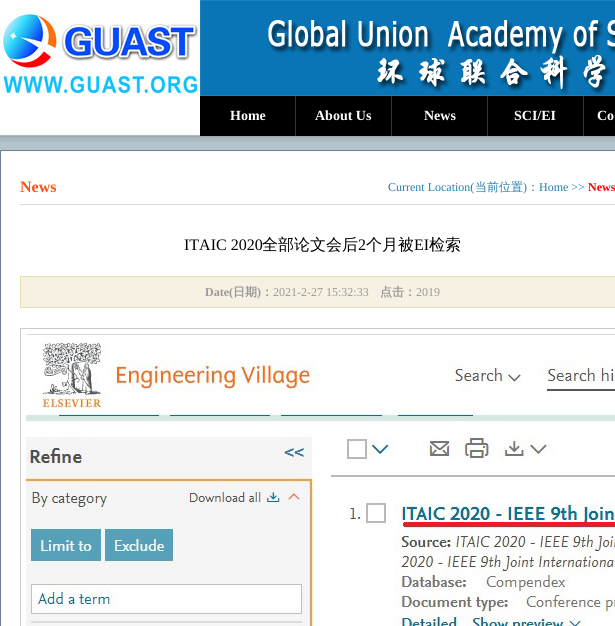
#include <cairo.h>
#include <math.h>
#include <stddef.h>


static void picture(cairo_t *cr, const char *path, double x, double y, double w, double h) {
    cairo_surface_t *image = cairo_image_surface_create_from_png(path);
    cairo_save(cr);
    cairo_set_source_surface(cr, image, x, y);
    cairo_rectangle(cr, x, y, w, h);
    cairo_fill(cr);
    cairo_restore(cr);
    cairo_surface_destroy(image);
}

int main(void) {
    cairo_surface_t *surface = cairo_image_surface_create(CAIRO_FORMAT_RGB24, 615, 626);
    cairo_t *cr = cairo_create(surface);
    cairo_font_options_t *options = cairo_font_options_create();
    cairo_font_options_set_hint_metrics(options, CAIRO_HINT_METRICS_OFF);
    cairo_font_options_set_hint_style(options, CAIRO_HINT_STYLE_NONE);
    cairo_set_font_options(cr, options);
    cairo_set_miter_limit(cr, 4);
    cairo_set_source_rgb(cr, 0.702, 0.769, 0.796);
    cairo_paint(cr);
    picture(cr, "img1.png", 0, 0, 615, 142);
    picture(cr, "img2.png", 0, 8, 200, 86);
    picture(cr, "img3.png", 200, 0, 415, 96);
    cairo_set_source_rgb(cr, 0, 0, 0);
    cairo_rectangle(cr, 200, 96, 415, 40);
    cairo_fill(cr);
    cairo_select_font_face(cr, "Liberation Serif", CAIRO_FONT_SLANT_NORMAL, CAIRO_FONT_WEIGHT_BOLD);
    cairo_set_font_size(cr, 14);
    cairo_set_source_rgb(cr, 1, 1, 1);
    cairo_move_to(cr, 230, 120);
    cairo_show_text(cr, "Home");
    cairo_set_source_rgb(cr, 0.2, 0.2, 0.2);
    cairo_rectangle(cr, 295, 96, 1, 40);
    cairo_fill(cr);
    cairo_set_source_rgb(cr, 1, 1, 1);
    cairo_move_to(cr, 315, 120);
    cairo_show_text(cr, "About Us");
    cairo_set_source_rgb(cr, 0.2, 0.2, 0.2);
    cairo_rectangle(cr, 391, 96, 1, 40);
    cairo_fill(cr);
    cairo_set_source_rgb(cr, 1, 1, 1);
    cairo_move_to(cr, 424, 120);
    cairo_show_text(cr, "News");
    cairo_set_source_rgb(cr, 0.2, 0.2, 0.2);
    cairo_rectangle(cr, 487, 96, 1, 40);
    cairo_fill(cr);
    cairo_set_source_rgb(cr, 1, 1, 1);
    cairo_move_to(cr, 514, 120);
    cairo_show_text(cr, "SCI/EI");
    cairo_set_source_rgb(cr, 0.2, 0.2, 0.2);
    cairo_rectangle(cr, 583, 96, 1, 40);
    cairo_fill(cr);
    cairo_set_source_rgb(cr, 1, 1, 1);
    cairo_move_to(cr, 597, 120);
    cairo_show_text(cr, "Co");
    cairo_rectangle(cr, 0.5, 150.5, 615, 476);
    cairo_fill_preserve(cr);
    cairo_set_source_rgb(cr, 0.443, 0.494, 0.608);
    cairo_set_line_width(cr, 1);
    cairo_stroke(cr);
    cairo_set_source_rgb(cr, 0.867, 0.863, 0.863);
    cairo_rectangle(cr, 20, 204, 595, 1);
    cairo_fill(cr);
    cairo_set_font_size(cr, 16);
    cairo_set_source_rgb(cr, 0.996, 0.322, 0.078);
    cairo_move_to(cr, 20, 192);
    cairo_show_text(cr, "News");
    cairo_select_font_face(cr, "Liberation Serif", CAIRO_FONT_SLANT_NORMAL, CAIRO_FONT_WEIGHT_NORMAL);
    cairo_set_font_size(cr, 12);
    cairo_set_source_rgb(cr, 0.137, 0.494, 0.667);
    cairo_move_to(cr, 388, 191);
    cairo_show_text(cr, "Current Location(");
    cairo_select_font_face(cr, "WenQuanYi Zen Hei Medium", CAIRO_FONT_SLANT_NORMAL, CAIRO_FONT_WEIGHT_NORMAL);
    cairo_move_to(cr, 475, 191);
    cairo_show_text(cr, "当前位置");
    cairo_select_font_face(cr, "Liberation Serif", CAIRO_FONT_SLANT_NORMAL, CAIRO_FONT_WEIGHT_NORMAL);
    cairo_move_to(cr, 523, 191);
    cairo_show_text(cr, ")");
    cairo_select_font_face(cr, "WenQuanYi Zen Hei Medium", CAIRO_FONT_SLANT_NORMAL, CAIRO_FONT_WEIGHT_NORMAL);
    cairo_move_to(cr, 527, 191);
    cairo_show_text(cr, "：");
    cairo_select_font_face(cr, "Liberation Serif", CAIRO_FONT_SLANT_NORMAL, CAIRO_FONT_WEIGHT_NORMAL);
    cairo_move_to(cr, 539, 191);
    cairo_show_text(cr, "Home >>");
    cairo_select_font_face(cr, "Liberation Serif", CAIRO_FONT_SLANT_NORMAL, CAIRO_FONT_WEIGHT_BOLD);
    cairo_set_source_rgb(cr, 1, 0, 0);
    cairo_move_to(cr, 588, 191);
    cairo_show_text(cr, "News");
    cairo_select_font_face(cr, "Liberation Serif", CAIRO_FONT_SLANT_NORMAL, CAIRO_FONT_WEIGHT_NORMAL);
    cairo_set_font_size(cr, 16);
    cairo_set_source_rgb(cr, 0, 0, 0);
    cairo_move_to(cr, 184, 250);
    cairo_show_text(cr, "ITAIC 2020");
    cairo_select_font_face(cr, "WenQuanYi Zen Hei Medium", CAIRO_FONT_SLANT_NORMAL, CAIRO_FONT_WEIGHT_NORMAL);
    cairo_move_to(cr, 262, 250);
    cairo_show_text(cr, "全部论文会后");
    cairo_select_font_face(cr, "Liberation Serif", CAIRO_FONT_SLANT_NORMAL, CAIRO_FONT_WEIGHT_NORMAL);
    cairo_move_to(cr, 358, 250);
    cairo_show_text(cr, "2");
    cairo_select_font_face(cr, "WenQuanYi Zen Hei Medium", CAIRO_FONT_SLANT_NORMAL, CAIRO_FONT_WEIGHT_NORMAL);
    cairo_move_to(cr, 366, 250);
    cairo_show_text(cr, "个月被");
    cairo_select_font_face(cr, "Liberation Serif", CAIRO_FONT_SLANT_NORMAL, CAIRO_FONT_WEIGHT_NORMAL);
    cairo_move_to(cr, 414, 250);
    cairo_show_text(cr, "EI");
    cairo_select_font_face(cr, "WenQuanYi Zen Hei Medium", CAIRO_FONT_SLANT_NORMAL, CAIRO_FONT_WEIGHT_NORMAL);
    cairo_move_to(cr, 429, 250);
    cairo_show_text(cr, "检索");
    cairo_set_source_rgb(cr, 0.965, 0.945, 0.89);
    cairo_rectangle(cr, 20.5, 276.5, 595, 31);
    cairo_fill_preserve(cr);
    cairo_set_source_rgb(cr, 0.894, 0.867, 0.706);
    cairo_stroke(cr);
    cairo_select_font_face(cr, "Liberation Serif", CAIRO_FONT_SLANT_NORMAL, CAIRO_FONT_WEIGHT_BOLD);
    cairo_set_font_size(cr, 12);
    cairo_set_source_rgb(cr, 0.6, 0.6, 0.6);
    cairo_move_to(cr, 205, 296);
    cairo_show_text(cr, "Date(");
    cairo_select_font_face(cr, "WenQuanYi Zen Hei", CAIRO_FONT_SLANT_NORMAL, CAIRO_FONT_WEIGHT_BOLD);
    cairo_move_to(cr, 233, 296);
    cairo_show_text(cr, "日期");
    cairo_select_font_face(cr, "Liberation Serif", CAIRO_FONT_SLANT_NORMAL, CAIRO_FONT_WEIGHT_BOLD);
    cairo_move_to(cr, 257, 296);
    cairo_show_text(cr, ")");
    cairo_select_font_face(cr, "WenQuanYi Zen Hei", CAIRO_FONT_SLANT_NORMAL, CAIRO_FONT_WEIGHT_BOLD);
    cairo_move_to(cr, 261, 296);
    cairo_show_text(cr, "：");
    cairo_select_font_face(cr, "Liberation Serif", CAIRO_FONT_SLANT_NORMAL, CAIRO_FONT_WEIGHT_NORMAL);
    cairo_move_to(cr, 273, 296);
    cairo_show_text(cr, "2021-2-27 15:32:33");
    cairo_select_font_face(cr, "WenQuanYi Zen Hei", CAIRO_FONT_SLANT_NORMAL, CAIRO_FONT_WEIGHT_BOLD);
    cairo_move_to(cr, 380, 296);
    cairo_show_text(cr, "点击：");
    cairo_select_font_face(cr, "Liberation Serif", CAIRO_FONT_SLANT_NORMAL, CAIRO_FONT_WEIGHT_NORMAL);
    cairo_move_to(cr, 416, 296);
    cairo_show_text(cr, "2019");
    cairo_rectangle(cr, 20.5, 328.5, 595, 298);
    cairo_set_source_rgb(cr, 0.8, 0.8, 0.8);
    cairo_stroke(cr);
    picture(cr, "img4.png", 26, 334, 589, 292);
    cairo_surface_write_to_png(surface, "page.png");
    cairo_font_options_destroy(options);
    cairo_destroy(cr);
    cairo_surface_destroy(surface);
    return 0;
}
